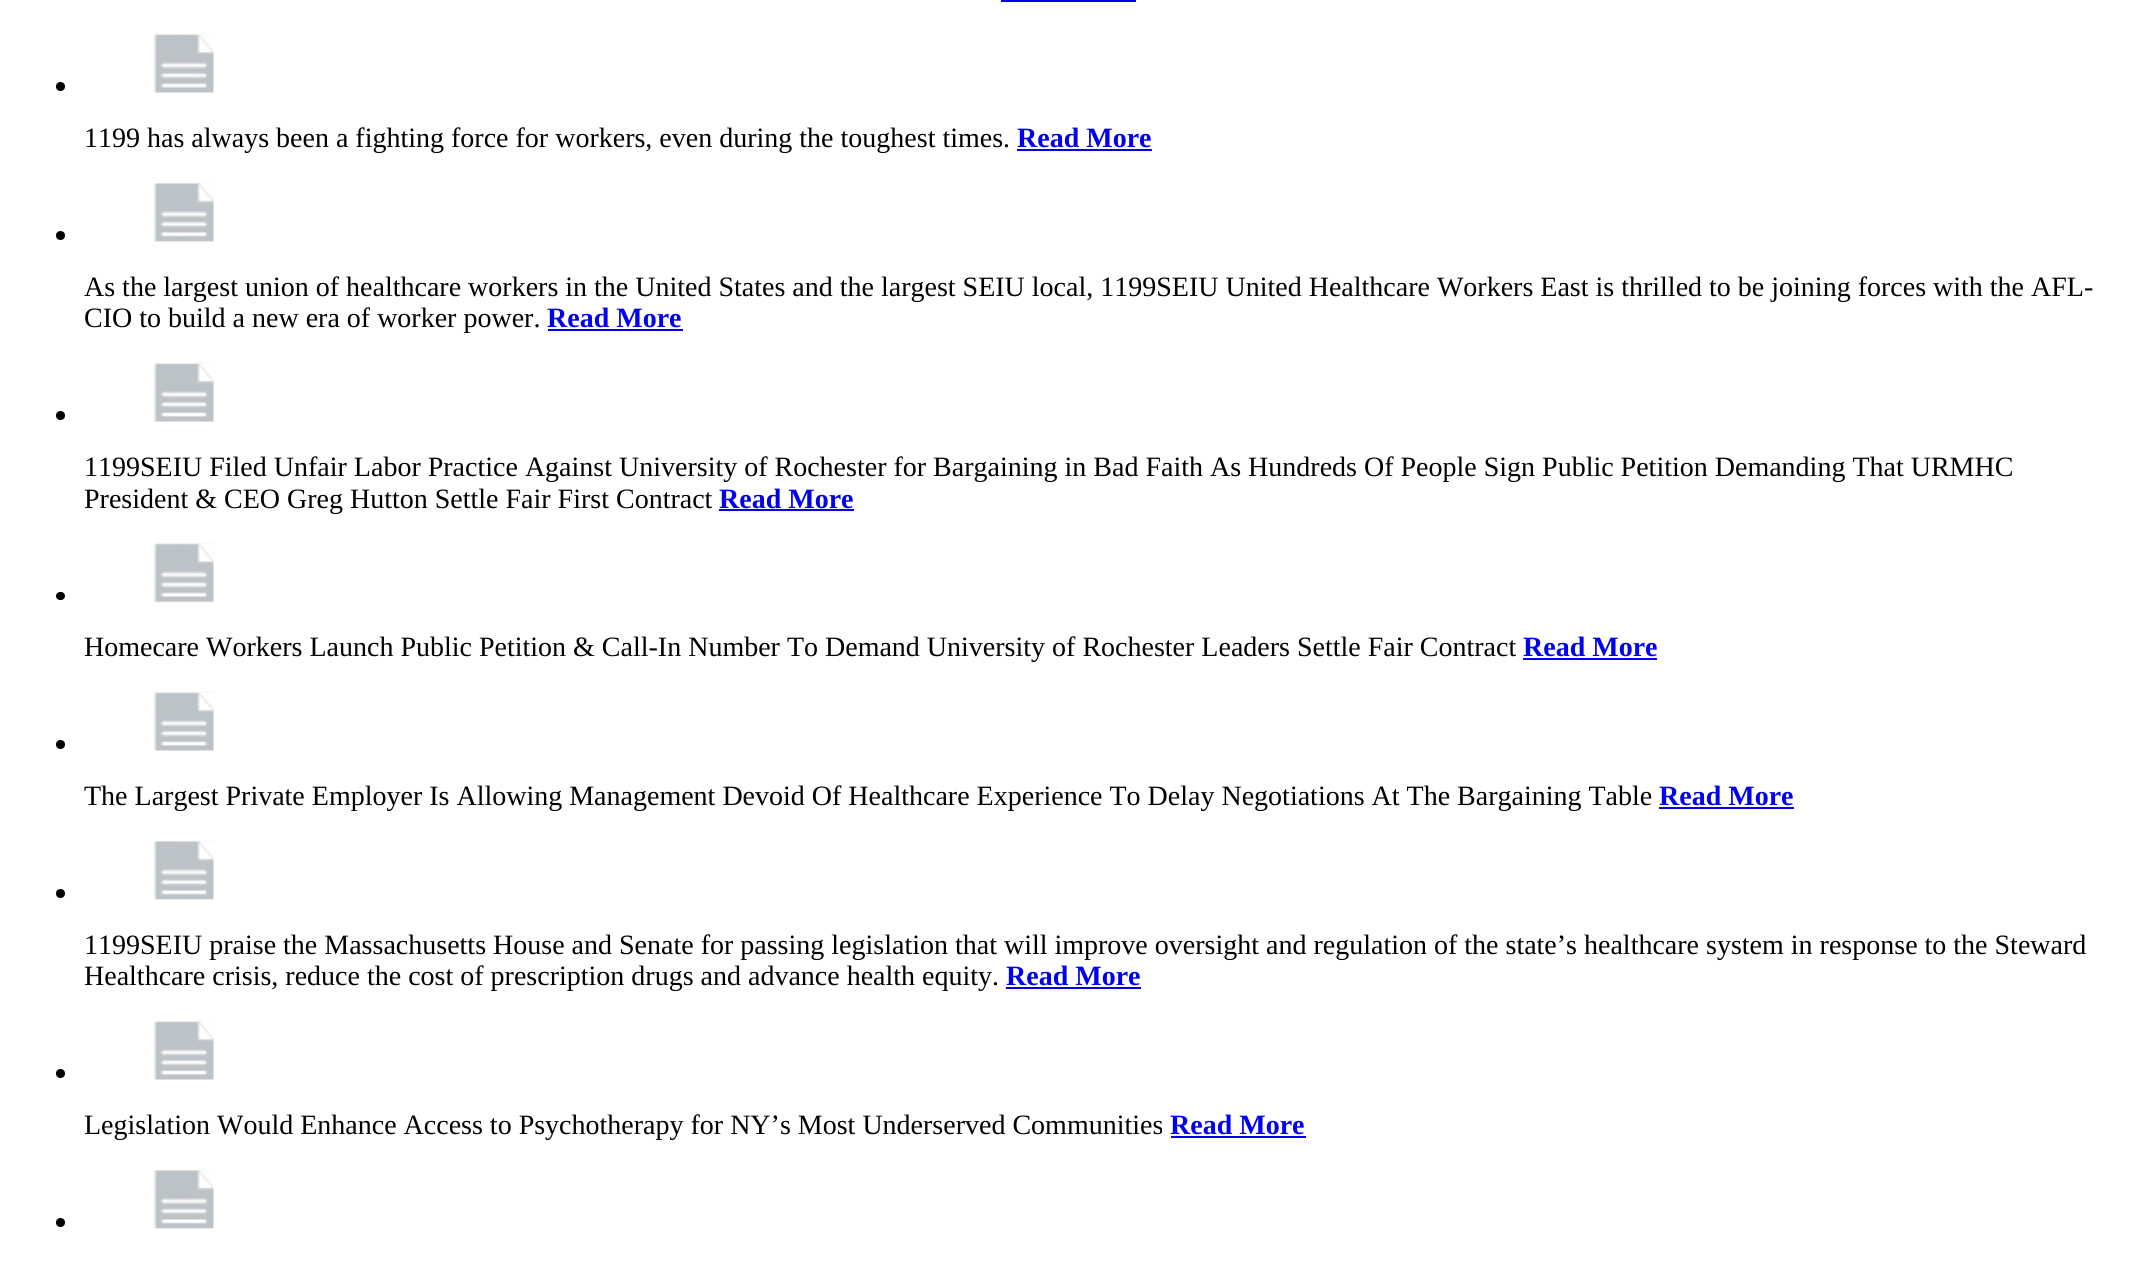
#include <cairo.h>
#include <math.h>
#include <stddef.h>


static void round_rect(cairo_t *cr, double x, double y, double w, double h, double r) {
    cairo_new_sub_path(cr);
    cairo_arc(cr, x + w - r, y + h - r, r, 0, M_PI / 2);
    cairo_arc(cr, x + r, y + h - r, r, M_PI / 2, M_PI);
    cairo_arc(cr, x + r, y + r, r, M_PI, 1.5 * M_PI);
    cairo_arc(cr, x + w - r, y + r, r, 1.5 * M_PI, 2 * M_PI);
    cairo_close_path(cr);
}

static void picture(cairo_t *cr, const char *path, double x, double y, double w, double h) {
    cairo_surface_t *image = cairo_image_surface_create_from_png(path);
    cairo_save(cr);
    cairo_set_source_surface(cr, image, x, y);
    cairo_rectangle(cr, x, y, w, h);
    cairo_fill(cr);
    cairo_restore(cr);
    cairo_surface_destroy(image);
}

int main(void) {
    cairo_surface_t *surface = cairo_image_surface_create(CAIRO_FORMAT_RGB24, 2129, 1266);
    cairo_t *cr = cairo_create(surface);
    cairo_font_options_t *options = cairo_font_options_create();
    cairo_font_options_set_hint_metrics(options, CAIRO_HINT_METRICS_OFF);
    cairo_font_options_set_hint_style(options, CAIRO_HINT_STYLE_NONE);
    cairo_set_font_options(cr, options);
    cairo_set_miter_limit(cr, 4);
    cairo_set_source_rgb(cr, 1, 1, 1);
    cairo_paint(cr);
    cairo_set_source_rgb(cr, 0, 0, 0.933);
    cairo_rectangle(cr, 1001, 0, 135, 2);
    cairo_fill(cr);
    cairo_set_source_rgb(cr, 0, 0, 0);
    cairo_arc(cr, 60.5, 86.5, 4.5, 0, 2 * M_PI);
    cairo_fill(cr);
    picture(cr, "img1.png", 154, 33, 60, 60);
    cairo_select_font_face(cr, "Liberation Serif", CAIRO_FONT_SLANT_NORMAL, CAIRO_FONT_WEIGHT_NORMAL);
    cairo_set_font_size(cr, 28);
    cairo_move_to(cr, 84, 147);
    cairo_show_text(cr, "1199 has always been a fighting force for workers, even during the toughest times.");
    cairo_select_font_face(cr, "Liberation Serif", CAIRO_FONT_SLANT_NORMAL, CAIRO_FONT_WEIGHT_BOLD);
    cairo_set_source_rgb(cr, 0, 0, 0.933);
    cairo_move_to(cr, 1017, 147);
    cairo_show_text(cr, "Read More");
    cairo_rectangle(cr, 1017, 149, 135, 2);
    cairo_fill(cr);
    cairo_set_source_rgb(cr, 0, 0, 0);
    cairo_arc(cr, 60.5, 235.5, 4.5, 0, 2 * M_PI);
    cairo_fill(cr);
    picture(cr, "img2.png", 154, 182, 60, 60);
    cairo_select_font_face(cr, "Liberation Serif", CAIRO_FONT_SLANT_NORMAL, CAIRO_FONT_WEIGHT_NORMAL);
    cairo_move_to(cr, 84, 296);
    cairo_show_text(cr, "As the largest union of healthcare workers in the United States and the largest SEIU local, 1199SEIU United Healthcare Workers East is thrilled to be joining forces with the AFL-");
    cairo_move_to(cr, 84, 327);
    cairo_show_text(cr, "CIO to build a new era of worker power.");
    cairo_select_font_face(cr, "Liberation Serif", CAIRO_FONT_SLANT_NORMAL, CAIRO_FONT_WEIGHT_BOLD);
    cairo_set_source_rgb(cr, 0, 0, 0.933);
    cairo_move_to(cr, 547, 327);
    cairo_show_text(cr, "Read More");
    cairo_rectangle(cr, 548, 329, 135, 2);
    cairo_fill(cr);
    cairo_set_source_rgb(cr, 0, 0, 0);
    cairo_arc(cr, 60.5, 415.5, 4.5, 0, 2 * M_PI);
    cairo_fill(cr);
    picture(cr, "img1.png", 154, 362, 60, 60);
    cairo_select_font_face(cr, "Liberation Serif", CAIRO_FONT_SLANT_NORMAL, CAIRO_FONT_WEIGHT_NORMAL);
    cairo_move_to(cr, 84, 476);
    cairo_show_text(cr, "1199SEIU Filed Unfair Labor Practice Against University of Rochester for Bargaining in Bad Faith As Hundreds Of People Sign Public Petition Demanding That URMHC");
    cairo_move_to(cr, 84, 508);
    cairo_show_text(cr, "President & CEO Greg Hutton Settle Fair First Contract");
    cairo_select_font_face(cr, "Liberation Serif", CAIRO_FONT_SLANT_NORMAL, CAIRO_FONT_WEIGHT_BOLD);
    cairo_set_source_rgb(cr, 0, 0, 0.933);
    cairo_move_to(cr, 719, 508);
    cairo_show_text(cr, "Read More");
    cairo_rectangle(cr, 719, 509, 135, 2);
    cairo_fill(cr);
    cairo_set_source_rgb(cr, 0, 0, 0);
    round_rect(cr, 56, 592, 9, 8, 4);
    cairo_fill(cr);
    picture(cr, "img3.png", 154, 542, 60, 61);
    cairo_select_font_face(cr, "Liberation Serif", CAIRO_FONT_SLANT_NORMAL, CAIRO_FONT_WEIGHT_NORMAL);
    cairo_move_to(cr, 84, 656);
    cairo_show_text(cr, "Homecare Workers Launch Public Petition & Call-In Number To Demand University of Rochester Leaders Settle Fair Contract");
    cairo_select_font_face(cr, "Liberation Serif", CAIRO_FONT_SLANT_NORMAL, CAIRO_FONT_WEIGHT_BOLD);
    cairo_set_source_rgb(cr, 0, 0, 0.933);
    cairo_move_to(cr, 1523, 656);
    cairo_show_text(cr, "Read More");
    cairo_rectangle(cr, 1523, 658, 134, 2);
    cairo_fill(cr);
    cairo_set_source_rgb(cr, 0, 0, 0);
    cairo_arc(cr, 60.5, 744.5, 4.5, 0, 2 * M_PI);
    cairo_fill(cr);
    picture(cr, "img1.png", 154, 691, 60, 60);
    cairo_select_font_face(cr, "Liberation Serif", CAIRO_FONT_SLANT_NORMAL, CAIRO_FONT_WEIGHT_NORMAL);
    cairo_move_to(cr, 84, 805);
    cairo_show_text(cr, "The Largest Private Employer Is Allowing Management Devoid Of Healthcare Experience To Delay Negotiations At The Bargaining Table");
    cairo_select_font_face(cr, "Liberation Serif", CAIRO_FONT_SLANT_NORMAL, CAIRO_FONT_WEIGHT_BOLD);
    cairo_set_source_rgb(cr, 0, 0, 0.933);
    cairo_move_to(cr, 1659, 805);
    cairo_show_text(cr, "Read More");
    cairo_rectangle(cr, 1659, 807, 135, 2);
    cairo_fill(cr);
    cairo_set_source_rgb(cr, 0, 0, 0);
    cairo_arc(cr, 60.5, 893.5, 4.5, 0, 2 * M_PI);
    cairo_fill(cr);
    picture(cr, "img2.png", 154, 840, 60, 60);
    cairo_select_font_face(cr, "Liberation Serif", CAIRO_FONT_SLANT_NORMAL, CAIRO_FONT_WEIGHT_NORMAL);
    cairo_move_to(cr, 84, 954);
    cairo_show_text(cr, "1199SEIU praise the Massachusetts House and Senate for passing legislation that will improve oversight and regulation of the state’s healthcare system in response to the Steward");
    cairo_move_to(cr, 84, 985);
    cairo_show_text(cr, "Healthcare crisis, reduce the cost of prescription drugs and advance health equity.");
    cairo_select_font_face(cr, "Liberation Serif", CAIRO_FONT_SLANT_NORMAL, CAIRO_FONT_WEIGHT_BOLD);
    cairo_set_source_rgb(cr, 0, 0, 0.933);
    cairo_move_to(cr, 1006, 985);
    cairo_show_text(cr, "Read More");
    cairo_rectangle(cr, 1006, 987, 135, 2);
    cairo_fill(cr);
    cairo_set_source_rgb(cr, 0, 0, 0);
    cairo_arc(cr, 60.5, 1073.5, 4.5, 0, 2 * M_PI);
    cairo_fill(cr);
    picture(cr, "img1.png", 154, 1020, 60, 60);
    cairo_select_font_face(cr, "Liberation Serif", CAIRO_FONT_SLANT_NORMAL, CAIRO_FONT_WEIGHT_NORMAL);
    cairo_move_to(cr, 84, 1134);
    cairo_show_text(cr, "Legislation Would Enhance Access to Psychotherapy for NY’s Most Underserved Communities");
    cairo_select_font_face(cr, "Liberation Serif", CAIRO_FONT_SLANT_NORMAL, CAIRO_FONT_WEIGHT_BOLD);
    cairo_set_source_rgb(cr, 0, 0, 0.933);
    cairo_move_to(cr, 1170, 1134);
    cairo_show_text(cr, "Read More");
    cairo_rectangle(cr, 1171, 1136, 135, 2);
    cairo_fill(cr);
    cairo_set_source_rgb(cr, 0, 0, 0);
    cairo_arc(cr, 60.5, 1222.5, 4.5, 0, 2 * M_PI);
    cairo_fill(cr);
    picture(cr, "img4.png", 154, 1169, 60, 60);
    cairo_surface_write_to_png(surface, "page.png");
    cairo_font_options_destroy(options);
    cairo_destroy(cr);
    cairo_surface_destroy(surface);
    return 0;
}
